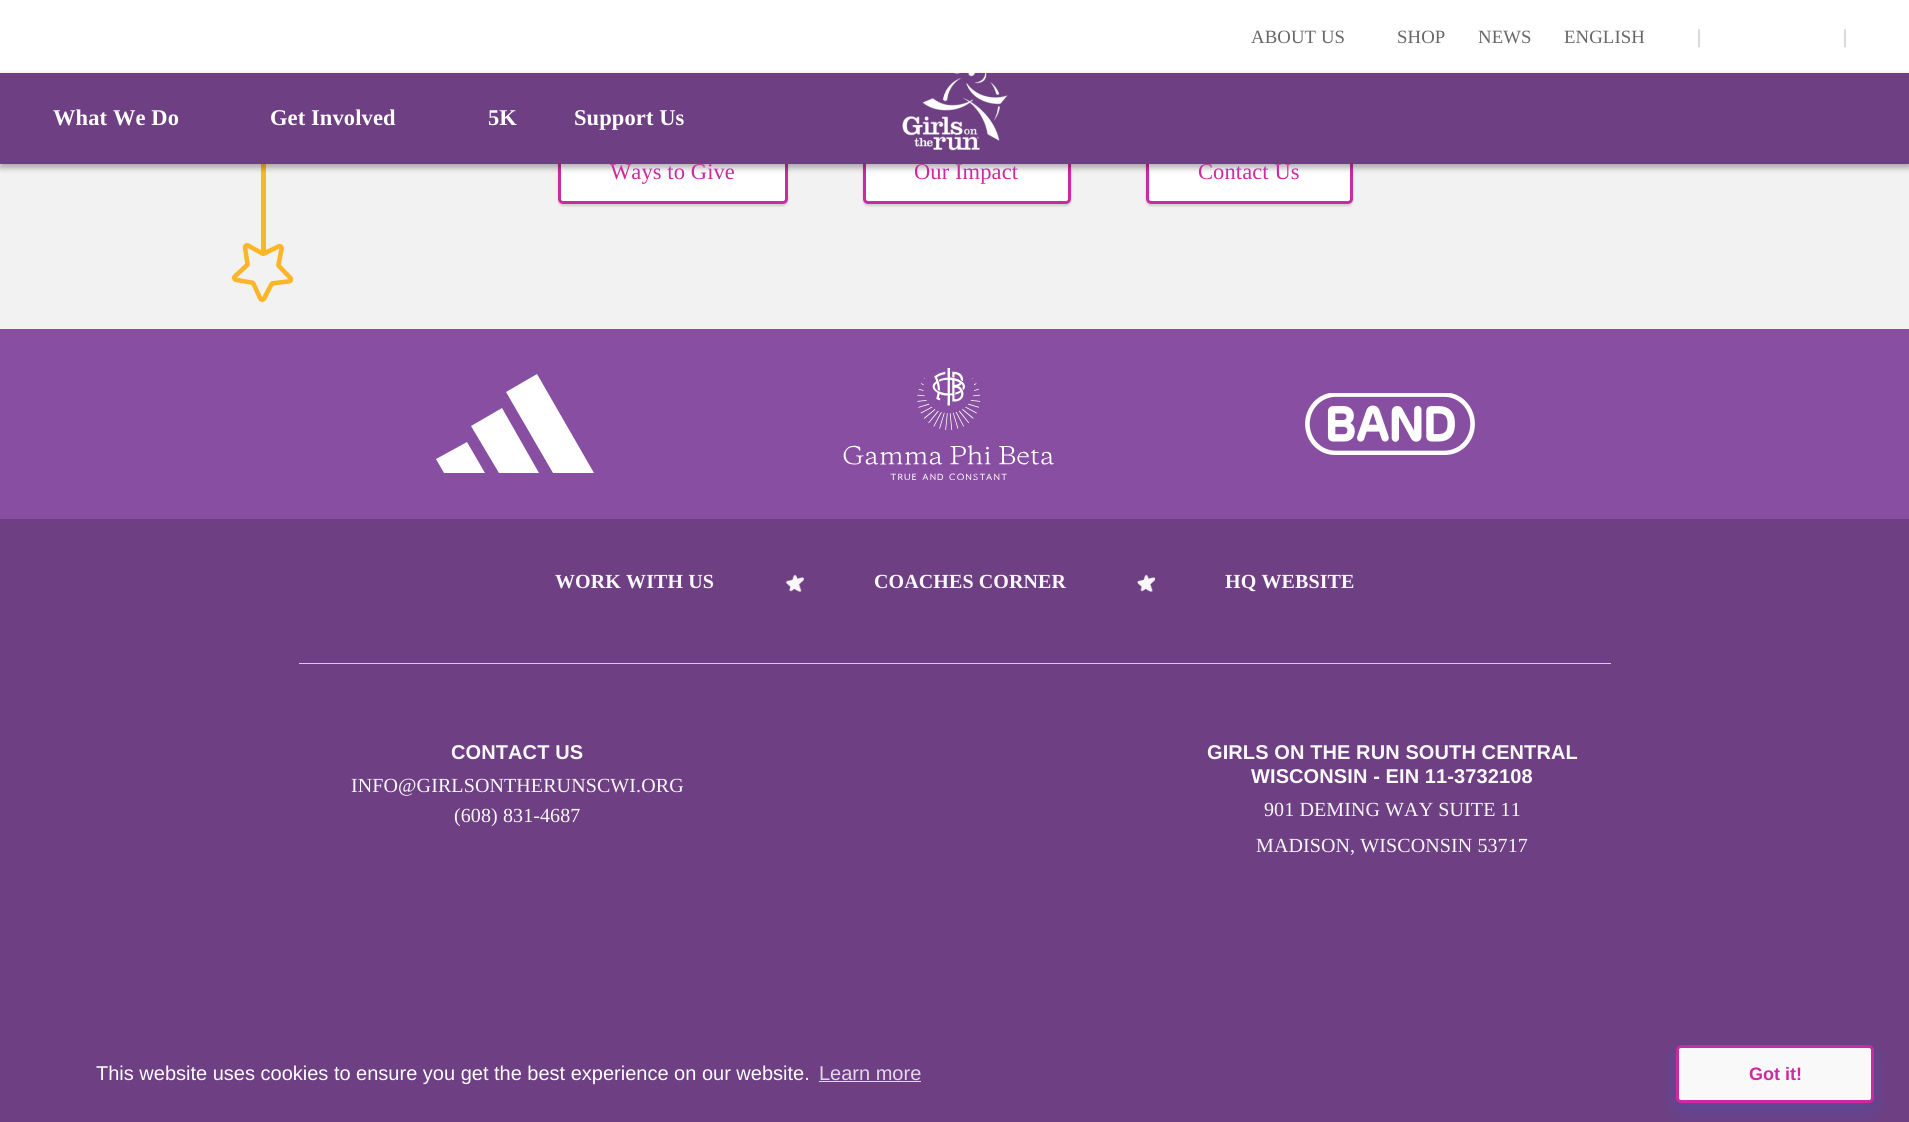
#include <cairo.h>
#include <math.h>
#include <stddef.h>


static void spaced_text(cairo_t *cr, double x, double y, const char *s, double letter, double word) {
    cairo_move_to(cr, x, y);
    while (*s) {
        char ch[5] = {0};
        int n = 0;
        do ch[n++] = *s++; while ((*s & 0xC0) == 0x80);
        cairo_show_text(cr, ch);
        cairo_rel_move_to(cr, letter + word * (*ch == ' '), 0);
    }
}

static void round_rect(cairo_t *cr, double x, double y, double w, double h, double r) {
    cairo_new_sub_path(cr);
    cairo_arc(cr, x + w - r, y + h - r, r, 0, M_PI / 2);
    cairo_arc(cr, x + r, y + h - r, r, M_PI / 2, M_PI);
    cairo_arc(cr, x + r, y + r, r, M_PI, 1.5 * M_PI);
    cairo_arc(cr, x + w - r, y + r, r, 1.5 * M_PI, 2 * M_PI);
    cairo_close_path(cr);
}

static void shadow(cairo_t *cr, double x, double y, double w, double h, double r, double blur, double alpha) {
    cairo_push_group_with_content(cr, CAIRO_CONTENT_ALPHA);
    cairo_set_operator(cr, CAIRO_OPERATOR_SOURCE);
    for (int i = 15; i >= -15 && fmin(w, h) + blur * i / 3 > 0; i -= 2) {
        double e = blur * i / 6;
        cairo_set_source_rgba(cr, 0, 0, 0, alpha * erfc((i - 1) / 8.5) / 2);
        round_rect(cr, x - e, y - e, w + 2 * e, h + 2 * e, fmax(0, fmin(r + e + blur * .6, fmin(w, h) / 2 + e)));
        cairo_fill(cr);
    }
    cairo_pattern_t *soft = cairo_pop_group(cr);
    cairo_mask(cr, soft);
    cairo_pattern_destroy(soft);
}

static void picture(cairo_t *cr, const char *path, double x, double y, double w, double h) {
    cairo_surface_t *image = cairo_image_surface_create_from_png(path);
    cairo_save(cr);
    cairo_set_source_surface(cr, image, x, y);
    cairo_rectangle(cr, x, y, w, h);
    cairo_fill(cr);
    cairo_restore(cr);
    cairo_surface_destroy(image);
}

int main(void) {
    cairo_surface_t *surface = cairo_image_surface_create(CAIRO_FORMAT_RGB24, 1909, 1122);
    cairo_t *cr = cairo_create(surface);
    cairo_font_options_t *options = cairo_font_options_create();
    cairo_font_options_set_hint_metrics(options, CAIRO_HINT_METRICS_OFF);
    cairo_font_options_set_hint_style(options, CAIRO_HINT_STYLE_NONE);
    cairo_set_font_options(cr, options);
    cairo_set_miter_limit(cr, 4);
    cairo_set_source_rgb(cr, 0.529, 0.306, 0.631);
    cairo_paint(cr);
    cairo_set_source_rgb(cr, 1, 1, 1);
    cairo_rectangle(cr, 0, 0, 1909, 73);
    cairo_fill(cr);
    cairo_select_font_face(cr, "Liberation Serif", CAIRO_FONT_SLANT_NORMAL, CAIRO_FONT_WEIGHT_NORMAL);
    cairo_set_font_size(cr, 18.75);
    cairo_set_source_rgb(cr, 0.404, 0.404, 0.412);
    spaced_text(cr, 1251, 43, "ABOUT US", 0.1, 0);
    spaced_text(cr, 1397, 43, "SHOP", 0.1, 0);
    spaced_text(cr, 1478, 43, "NEWS", 0.1, 0);
    spaced_text(cr, 1564, 43, "ENGLISH", 0.1, 0);
    cairo_set_font_size(cr, 20);
    cairo_set_source_rgb(cr, 0.702, 0.702, 0.706);
    cairo_move_to(cr, 1697, 43);
    cairo_show_text(cr, "|");
    cairo_move_to(cr, 1843, 43);
    cairo_show_text(cr, "|");
    cairo_set_source_rgb(cr, 0.949, 0.949, 0.953);
    cairo_rectangle(cr, 0, 164, 1909, 165);
    cairo_fill(cr);
    cairo_set_source_rgb(cr, 0.988, 0.71, 0.149);
    cairo_rectangle(cr, 261, 164, 5, 90);
    cairo_fill(cr);
    cairo_set_source_rgb(cr, 0, 0, 0);
    shadow(cr, 558, 143, 230, 63, 5, 1, 0.15);
    cairo_set_source_rgb(cr, 1, 1, 1);
    round_rect(cr, 559.5, 141.5, 227, 61, 3.5);
    cairo_fill_preserve(cr);
    cairo_set_source_rgb(cr, 0.796, 0.165, 0.627);
    cairo_set_line_width(cr, 3);
    cairo_stroke(cr);
    cairo_set_source_rgb(cr, 0, 0, 0);
    shadow(cr, 863, 143, 208, 63, 5, 1, 0.15);
    cairo_set_source_rgb(cr, 1, 1, 1);
    round_rect(cr, 864.5, 141.5, 205, 61, 3.5);
    cairo_fill_preserve(cr);
    cairo_set_source_rgb(cr, 0.796, 0.165, 0.627);
    cairo_stroke(cr);
    cairo_set_source_rgb(cr, 0, 0, 0);
    shadow(cr, 1146, 143, 207, 63, 5, 1, 0.15);
    cairo_set_source_rgb(cr, 1, 1, 1);
    round_rect(cr, 1147.5, 141.5, 204, 61, 3.5);
    cairo_fill_preserve(cr);
    cairo_set_source_rgb(cr, 0.796, 0.165, 0.627);
    cairo_stroke(cr);
    cairo_set_source_rgb(cr, 0, 0, 0);
    shadow(cr, 0, 76, 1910, 92, 0, 3, 0.3);
    cairo_set_source_rgb(cr, 0.431, 0.247, 0.514);
    cairo_rectangle(cr, 0, 73, 1909, 91);
    cairo_fill(cr);
    cairo_select_font_face(cr, "Liberation Serif", CAIRO_FONT_SLANT_NORMAL, CAIRO_FONT_WEIGHT_BOLD);
    cairo_set_font_size(cr, 22.5);
    cairo_set_source_rgb(cr, 1, 1, 1);
    spaced_text(cr, 53, 125, "What We Do", 0.1, 0);
    spaced_text(cr, 270, 125, "Get Involved", 0.1, 0);
    spaced_text(cr, 488, 125, "5K", 0.1, 0);
    spaced_text(cr, 574, 125, "Support Us", 0.1, 0);
    picture(cr, "img1.png", 902, 71, 106, 80);
    picture(cr, "img2.png", 231, 243, 63, 59);
    cairo_select_font_face(cr, "Liberation Serif", CAIRO_FONT_SLANT_NORMAL, CAIRO_FONT_WEIGHT_NORMAL);
    cairo_set_source_rgb(cr, 0.796, 0.165, 0.627);
    spaced_text(cr, 610, 179, "Ways to Give", 0.1, 0);
    spaced_text(cr, 914, 179, "Our Impact", 0.1, 0);
    spaced_text(cr, 1198, 179, "Contact Us", 0.1, 0);
    cairo_set_source_rgb(cr, 1, 1, 1);
    cairo_new_path(cr);
    cairo_move_to(cr, 594, 473);
    cairo_line_to(cr, 537, 374);
    cairo_line_to(cr, 506, 392);
    cairo_line_to(cr, 553, 473);
    cairo_close_path(cr);
    cairo_fill(cr);
    cairo_new_path(cr);
    cairo_move_to(cr, 539, 473);
    cairo_line_to(cr, 502, 408);
    cairo_line_to(cr, 471, 426);
    cairo_line_to(cr, 499, 473);
    cairo_close_path(cr);
    cairo_fill(cr);
    cairo_new_path(cr);
    cairo_move_to(cr, 485, 473);
    cairo_line_to(cr, 467, 442);
    cairo_line_to(cr, 436, 459);
    cairo_line_to(cr, 444, 473);
    cairo_close_path(cr);
    cairo_fill(cr);
    picture(cr, "img3.png", 843, 368, 211, 112);
    picture(cr, "img4.png", 1305, 393, 170, 62);
    cairo_set_source_rgb(cr, 0.431, 0.247, 0.514);
    cairo_rectangle(cr, 0, 519, 1909, 603);
    cairo_fill(cr);
    cairo_select_font_face(cr, "Liberation Serif", CAIRO_FONT_SLANT_NORMAL, CAIRO_FONT_WEIGHT_BOLD);
    cairo_set_font_size(cr, 20);
    cairo_set_source_rgb(cr, 0.976, 0.976, 0.98);
    spaced_text(cr, 555, 588, "WORK WITH US", 0.1, 0);
    picture(cr, "img5.png", 785, 574, 19, 18);
    spaced_text(cr, 874, 588, "COACHES CORNER", 0.1, 0);
    picture(cr, "img6.png", 1137, 574, 18, 18);
    spaced_text(cr, 1225, 588, "HQ WEBSITE", 0.1, 0);
    cairo_set_source_rgb(cr, 0.992, 0.812, 0.455);
    cairo_rectangle(cr, 299, 663, 1312, 1);
    cairo_fill(cr);
    cairo_select_font_face(cr, "Liberation Sans", CAIRO_FONT_SLANT_NORMAL, CAIRO_FONT_WEIGHT_BOLD);
    cairo_set_source_rgb(cr, 0.976, 0.976, 0.98);
    spaced_text(cr, 451, 759, "CONTACT US", 0.1, 0);
    cairo_select_font_face(cr, "Liberation Serif", CAIRO_FONT_SLANT_NORMAL, CAIRO_FONT_WEIGHT_NORMAL);
    spaced_text(cr, 351, 792, "INFO@GIRLSONTHERUNSCWI.ORG", 0.1, 0);
    spaced_text(cr, 454, 822, "(608) 831-4687", 0.1, 0);
    cairo_select_font_face(cr, "Liberation Sans", CAIRO_FONT_SLANT_NORMAL, CAIRO_FONT_WEIGHT_BOLD);
    spaced_text(cr, 1207, 759, "GIRLS ON THE RUN SOUTH CENTRAL", 0.1, 0);
    spaced_text(cr, 1251, 783, "WISCONSIN - EIN 11-3732108", 0.1, 0);
    cairo_select_font_face(cr, "Liberation Serif", CAIRO_FONT_SLANT_NORMAL, CAIRO_FONT_WEIGHT_NORMAL);
    spaced_text(cr, 1264, 816, "901 DEMING WAY SUITE 11", 0.1, 0);
    spaced_text(cr, 1256, 852, "MADISON, WISCONSIN 53717", 0.1, 0);
    cairo_select_font_face(cr, "Liberation Sans", CAIRO_FONT_SLANT_NORMAL, CAIRO_FONT_WEIGHT_NORMAL);
    cairo_set_source_rgb(cr, 1, 1, 1);
    cairo_move_to(cr, 96, 1080);
    cairo_show_text(cr, "This website uses cookies to ensure you get the best experience on our website.");
    cairo_set_source_rgb(cr, 0.886, 0.851, 0.902);
    cairo_move_to(cr, 819, 1080);
    cairo_show_text(cr, "Learn more");
    cairo_rectangle(cr, 819, 1081, 102, 1);
    cairo_fill(cr);
    cairo_set_source_rgb(cr, 0, 0.494, 1);
    shadow(cr, 1676, 1055, 198, 58, 5, 10, 0.16);
    cairo_set_source_rgb(cr, 0.976, 0.976, 0.98);
    round_rect(cr, 1677.5, 1046.5, 195, 55, 3.5);
    cairo_fill_preserve(cr);
    cairo_set_source_rgb(cr, 0.796, 0.165, 0.627);
    cairo_stroke(cr);
    cairo_select_font_face(cr, "Liberation Sans", CAIRO_FONT_SLANT_NORMAL, CAIRO_FONT_WEIGHT_BOLD);
    cairo_set_font_size(cr, 18);
    cairo_move_to(cr, 1749, 1080);
    cairo_show_text(cr, "Got it!");
    cairo_surface_write_to_png(surface, "page.png");
    cairo_font_options_destroy(options);
    cairo_destroy(cr);
    cairo_surface_destroy(surface);
    return 0;
}
